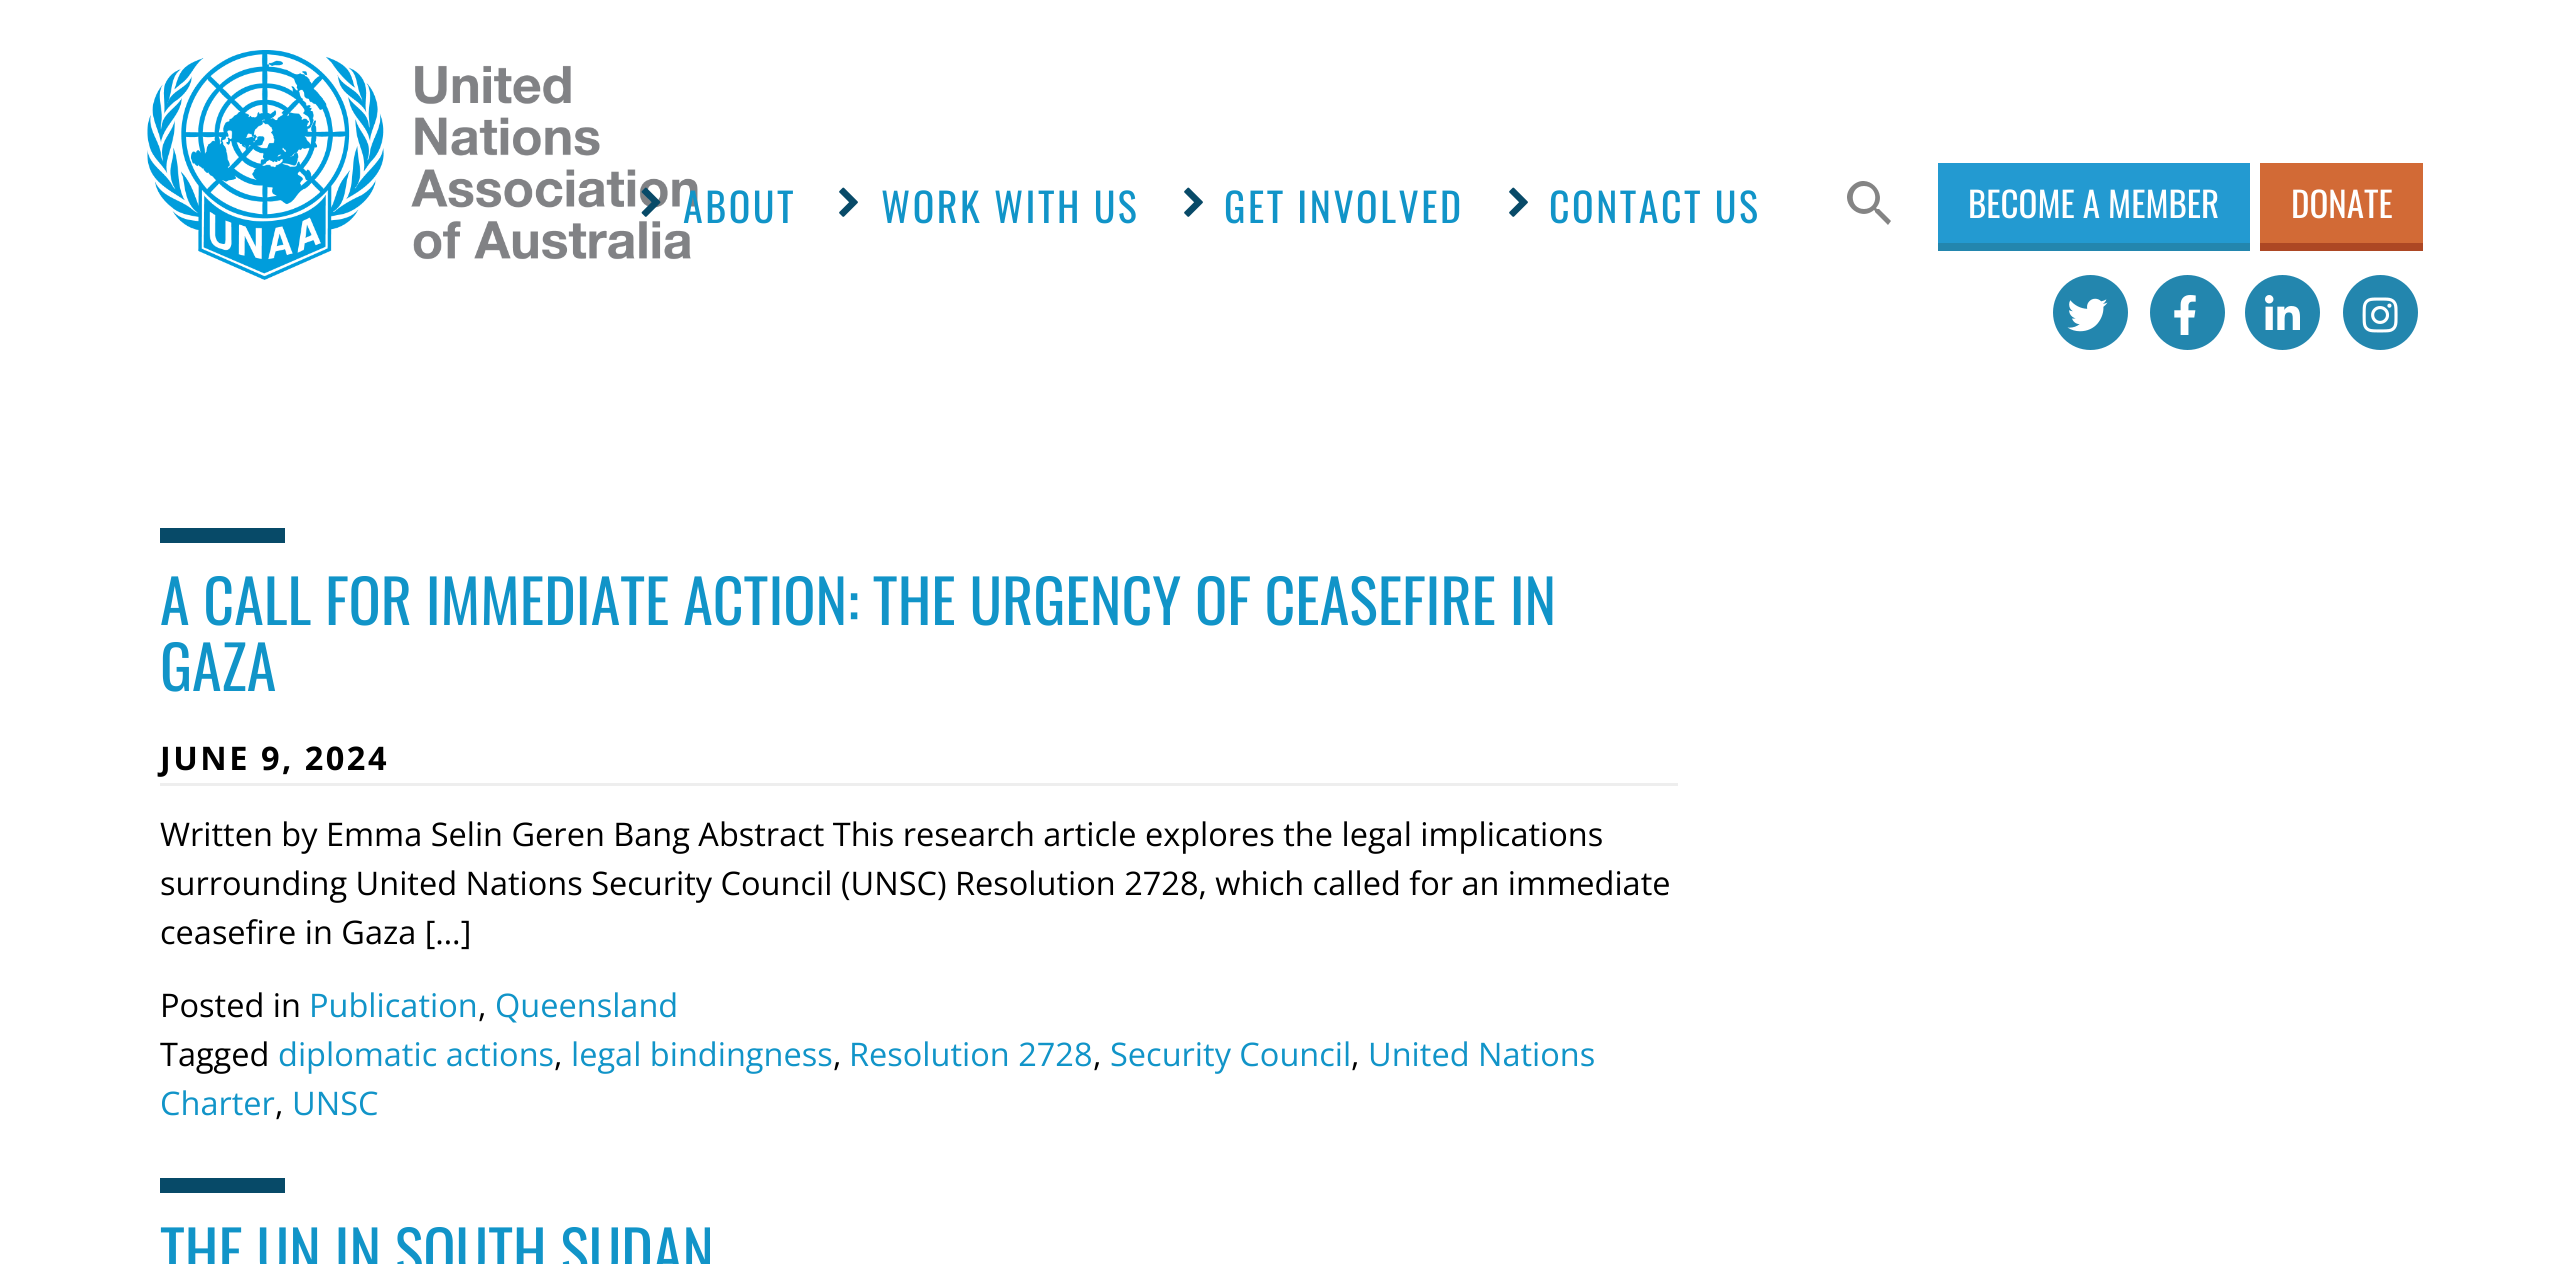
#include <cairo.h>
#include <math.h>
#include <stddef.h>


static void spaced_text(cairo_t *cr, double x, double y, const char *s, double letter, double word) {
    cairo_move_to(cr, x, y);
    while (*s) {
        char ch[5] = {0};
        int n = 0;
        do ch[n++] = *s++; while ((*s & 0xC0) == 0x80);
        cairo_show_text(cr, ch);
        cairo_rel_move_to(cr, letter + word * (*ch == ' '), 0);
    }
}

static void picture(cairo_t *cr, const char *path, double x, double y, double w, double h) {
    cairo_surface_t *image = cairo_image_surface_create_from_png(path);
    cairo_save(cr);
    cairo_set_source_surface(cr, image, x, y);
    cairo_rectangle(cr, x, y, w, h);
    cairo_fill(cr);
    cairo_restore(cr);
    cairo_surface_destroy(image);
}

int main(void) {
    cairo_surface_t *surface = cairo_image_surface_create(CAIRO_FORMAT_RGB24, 2570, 1264);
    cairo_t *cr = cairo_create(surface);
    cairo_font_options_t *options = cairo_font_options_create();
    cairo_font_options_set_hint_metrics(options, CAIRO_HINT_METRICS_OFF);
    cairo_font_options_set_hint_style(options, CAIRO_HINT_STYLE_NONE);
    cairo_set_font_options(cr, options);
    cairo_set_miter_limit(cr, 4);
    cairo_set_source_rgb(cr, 1, 1, 1);
    cairo_paint(cr);
    picture(cr, "img1.png", 147, 50, 551, 230);
    picture(cr, "img2.png", 641, 187, 20, 30);
    cairo_select_font_face(cr, "Oswald", CAIRO_FONT_SLANT_NORMAL, CAIRO_FONT_WEIGHT_NORMAL);
    cairo_set_font_size(cr, 40);
    cairo_set_source_rgb(cr, 0.067, 0.58, 0.784);
    spaced_text(cr, 683, 223, "ABOUT", 2.5, 0);
    picture(cr, "img3.png", 839, 187, 19, 30);
    spaced_text(cr, 881, 223, "WORK WITH US", 2.5, 0);
    picture(cr, "img3.png", 1184, 187, 19, 30);
    spaced_text(cr, 1224, 223, "GET INVOLVED", 2.5, 0);
    picture(cr, "img3.png", 1509, 187, 19, 30);
    spaced_text(cr, 1549, 223, "CONTACT US", 2.5, 0);
    cairo_set_source_rgb(cr, 0.518, 0.518, 0.518);
    cairo_new_path(cr);
    cairo_move_to(cr, 1879, 209);
    cairo_line_to(cr, 1877, 209);
    cairo_line_to(cr, 1876, 208);
    cairo_curve_to(cr, 1889, 193, 1867, 171, 1852, 186);
    cairo_curve_to(cr, 1837, 201, 1859, 223, 1874, 210);
    cairo_line_to(cr, 1875, 211);
    cairo_line_to(cr, 1875, 212);
    cairo_line_to(cr, 1888, 225);
    cairo_line_to(cr, 1891, 221);
    cairo_close_path(cr);
    cairo_move_to(cr, 1864, 209);
    cairo_curve_to(cr, 1849, 209, 1849, 186, 1864, 186);
    cairo_curve_to(cr, 1879, 186, 1879, 209, 1864, 209);
    cairo_close_path(cr);
    cairo_fill(cr);
    cairo_set_source_rgb(cr, 0.137, 0.604, 0.82);
    cairo_rectangle(cr, 1938, 163, 312, 80);
    cairo_fill(cr);
    cairo_set_source_rgb(cr, 0.137, 0.525, 0.682);
    cairo_rectangle(cr, 1938, 243, 312, 8);
    cairo_fill(cr);
    cairo_set_font_size(cr, 35);
    cairo_set_source_rgb(cr, 1, 1, 1);
    cairo_move_to(cr, 1968, 218);
    cairo_show_text(cr, "BECOME A MEMBER");
    cairo_set_source_rgb(cr, 0.824, 0.416, 0.212);
    cairo_rectangle(cr, 2260, 163, 163, 80);
    cairo_fill(cr);
    cairo_set_source_rgb(cr, 0.678, 0.278, 0.141);
    cairo_rectangle(cr, 2260, 243, 163, 8);
    cairo_fill(cr);
    cairo_set_source_rgb(cr, 1, 1, 1);
    cairo_move_to(cr, 2291, 218);
    cairo_show_text(cr, "DONATE");
    cairo_set_source_rgb(cr, 0.137, 0.525, 0.682);
    cairo_new_path(cr);
    cairo_arc(cr, 2090.5, 312.5, 37.5, 0, 2 * M_PI);
    cairo_fill(cr);
    picture(cr, "img4.png", 2067, 298, 41, 34);
    cairo_arc(cr, 2187.5, 312.5, 37.5, 0, 2 * M_PI);
    cairo_fill(cr);
    picture(cr, "img5.png", 2174, 295, 22, 40);
    cairo_arc(cr, 2282.5, 312.5, 37.5, 0, 2 * M_PI);
    cairo_fill(cr);
    picture(cr, "img6.png", 2265, 295, 35, 35);
    cairo_arc(cr, 2380.5, 312.5, 37.5, 0, 2 * M_PI);
    cairo_fill(cr);
    picture(cr, "img7.png", 2362, 297, 36, 36);
    cairo_set_source_rgb(cr, 0.031, 0.29, 0.408);
    cairo_rectangle(cr, 160, 528, 125, 15);
    cairo_fill(cr);
    cairo_set_font_size(cr, 60);
    cairo_set_source_rgb(cr, 0.067, 0.58, 0.784);
    cairo_move_to(cr, 160, 625);
    cairo_show_text(cr, "A CALL FOR IMMEDIATE ACTION: THE URGENCY OF CEASEFIRE IN");
    cairo_move_to(cr, 160, 691);
    cairo_show_text(cr, "GAZA");
    cairo_set_source_rgb(cr, 0.933, 0.933, 0.933);
    cairo_rectangle(cr, 160, 783, 1518, 3);
    cairo_fill(cr);
    cairo_select_font_face(cr, "Open Sans", CAIRO_FONT_SLANT_NORMAL, CAIRO_FONT_WEIGHT_BOLD);
    cairo_set_font_size(cr, 32.5);
    cairo_set_source_rgb(cr, 0, 0, 0);
    spaced_text(cr, 160, 770, "JUNE 9, 2024", 2.5, 0);
    cairo_select_font_face(cr, "Open Sans", CAIRO_FONT_SLANT_NORMAL, CAIRO_FONT_WEIGHT_NORMAL);
    cairo_move_to(cr, 160, 846);
    cairo_show_text(cr, "Written by Emma Selin Geren Bang Abstract This research article explores the legal implications");
    cairo_move_to(cr, 160, 895);
    cairo_show_text(cr, "surrounding United Nations Security Council (UNSC) Resolution 2728, which called for an immediate");
    cairo_move_to(cr, 160, 944);
    cairo_show_text(cr, "ceasefire in Gaza […]");
    cairo_move_to(cr, 160, 1017);
    cairo_show_text(cr, "Posted in");
    cairo_set_source_rgb(cr, 0.067, 0.58, 0.784);
    cairo_move_to(cr, 309, 1017);
    cairo_show_text(cr, "Publication");
    cairo_set_source_rgb(cr, 0, 0, 0);
    cairo_move_to(cr, 478, 1017);
    cairo_show_text(cr, ",");
    cairo_set_source_rgb(cr, 0.067, 0.58, 0.784);
    cairo_move_to(cr, 495, 1017);
    cairo_show_text(cr, "Queensland");
    cairo_set_source_rgb(cr, 0, 0, 0);
    cairo_move_to(cr, 160, 1066);
    cairo_show_text(cr, "Tagged");
    cairo_set_source_rgb(cr, 0.067, 0.58, 0.784);
    cairo_move_to(cr, 278, 1066);
    cairo_show_text(cr, "diplomatic actions");
    cairo_set_source_rgb(cr, 0, 0, 0);
    cairo_move_to(cr, 554, 1066);
    cairo_show_text(cr, ",");
    cairo_set_source_rgb(cr, 0.067, 0.58, 0.784);
    cairo_move_to(cr, 571, 1066);
    cairo_show_text(cr, "legal bindingness");
    cairo_set_source_rgb(cr, 0, 0, 0);
    cairo_move_to(cr, 833, 1066);
    cairo_show_text(cr, ",");
    cairo_set_source_rgb(cr, 0.067, 0.58, 0.784);
    cairo_move_to(cr, 849, 1066);
    cairo_show_text(cr, "Resolution 2728");
    cairo_set_source_rgb(cr, 0, 0, 0);
    cairo_move_to(cr, 1093, 1066);
    cairo_show_text(cr, ",");
    cairo_set_source_rgb(cr, 0.067, 0.58, 0.784);
    cairo_move_to(cr, 1110, 1066);
    cairo_show_text(cr, "Security Council");
    cairo_set_source_rgb(cr, 0, 0, 0);
    cairo_move_to(cr, 1351, 1066);
    cairo_show_text(cr, ",");
    cairo_set_source_rgb(cr, 0.067, 0.58, 0.784);
    cairo_move_to(cr, 1368, 1066);
    cairo_show_text(cr, "United Nations");
    cairo_move_to(cr, 160, 1115);
    cairo_show_text(cr, "Charter");
    cairo_set_source_rgb(cr, 0, 0, 0);
    cairo_move_to(cr, 275, 1115);
    cairo_show_text(cr, ",");
    cairo_set_source_rgb(cr, 0.067, 0.58, 0.784);
    cairo_move_to(cr, 292, 1115);
    cairo_show_text(cr, "UNSC");
    cairo_set_source_rgb(cr, 0.031, 0.29, 0.408);
    cairo_rectangle(cr, 160, 1178, 125, 15);
    cairo_fill(cr);
    cairo_select_font_face(cr, "Oswald", CAIRO_FONT_SLANT_NORMAL, CAIRO_FONT_WEIGHT_NORMAL);
    cairo_set_font_size(cr, 60);
    cairo_set_source_rgb(cr, 0.067, 0.58, 0.784);
    cairo_move_to(cr, 160, 1276);
    cairo_show_text(cr, "THE UN IN SOUTH SUDAN");
    cairo_surface_write_to_png(surface, "page.png");
    cairo_font_options_destroy(options);
    cairo_destroy(cr);
    cairo_surface_destroy(surface);
    return 0;
}
